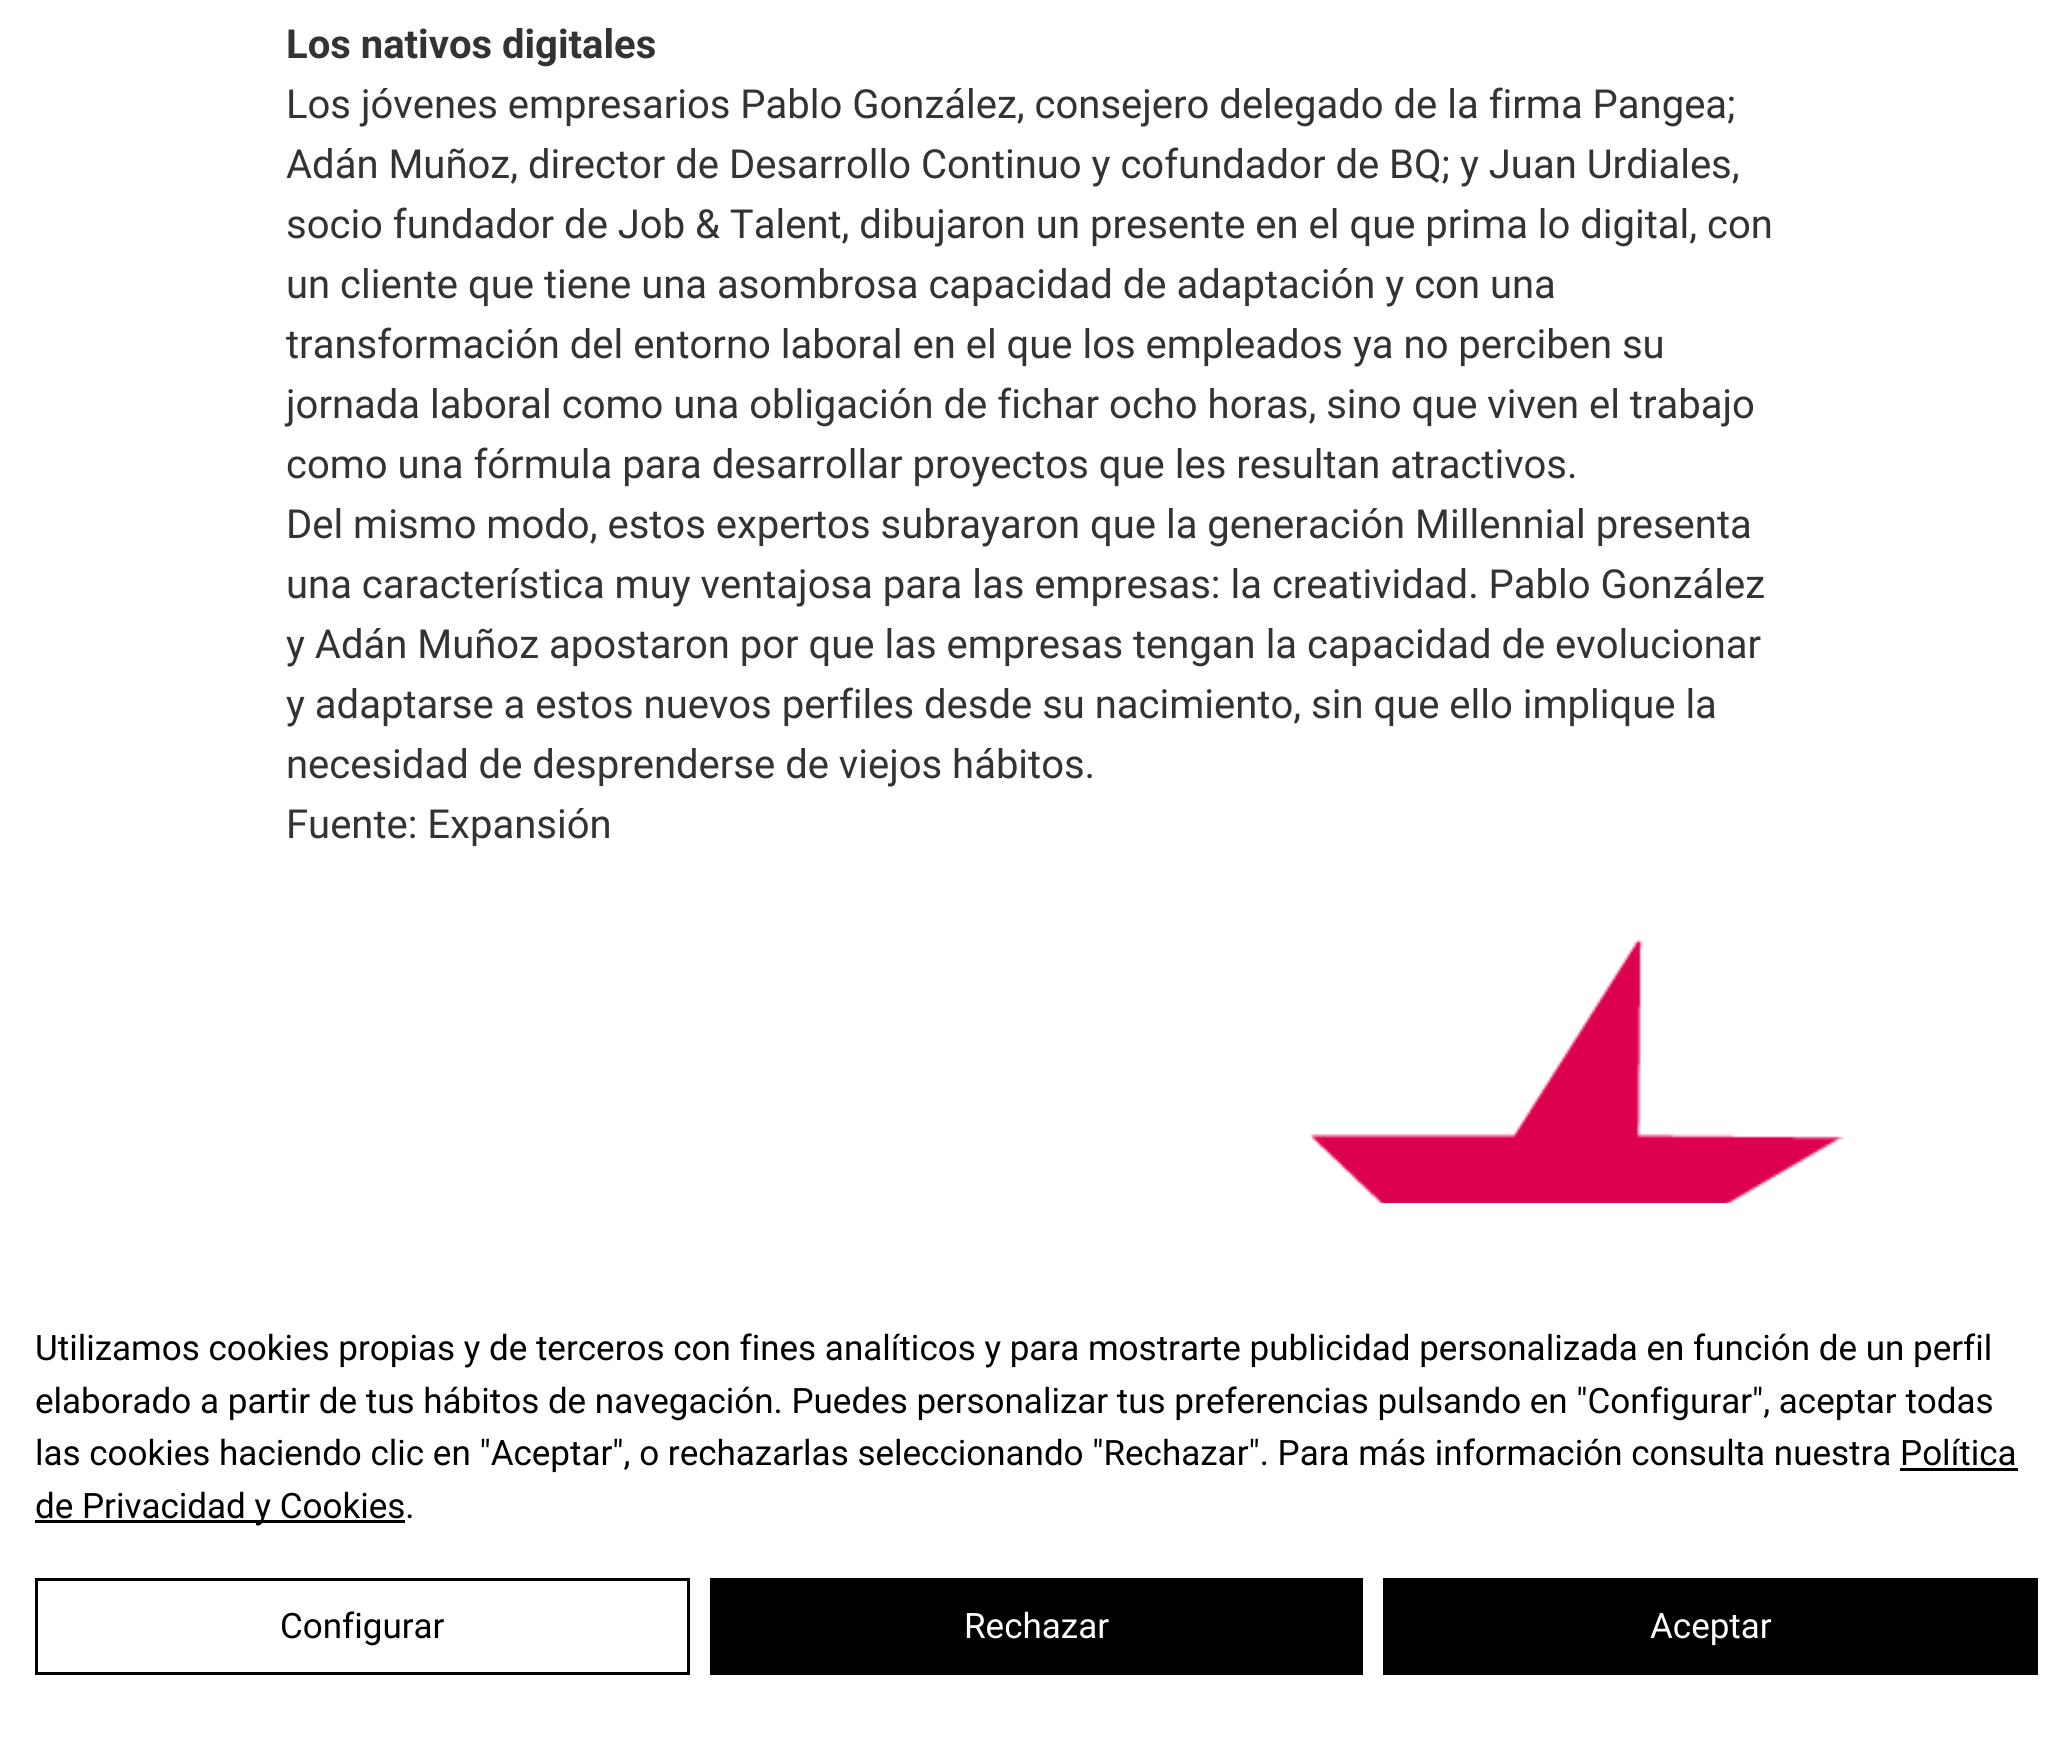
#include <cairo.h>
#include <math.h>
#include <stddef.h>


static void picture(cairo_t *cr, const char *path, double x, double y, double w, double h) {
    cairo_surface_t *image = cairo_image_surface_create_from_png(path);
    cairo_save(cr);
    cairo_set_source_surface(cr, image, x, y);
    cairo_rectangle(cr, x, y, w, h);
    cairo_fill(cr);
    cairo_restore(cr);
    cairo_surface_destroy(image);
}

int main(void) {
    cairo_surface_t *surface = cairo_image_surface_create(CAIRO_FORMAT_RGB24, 2072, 1744);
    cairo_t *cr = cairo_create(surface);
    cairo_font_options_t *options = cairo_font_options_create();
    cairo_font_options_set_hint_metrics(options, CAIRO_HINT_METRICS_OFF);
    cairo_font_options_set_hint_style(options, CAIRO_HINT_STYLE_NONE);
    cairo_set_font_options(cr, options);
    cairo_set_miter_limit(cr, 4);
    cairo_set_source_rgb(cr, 1, 1, 1);
    cairo_paint(cr);
    cairo_select_font_face(cr, "Roboto", CAIRO_FONT_SLANT_NORMAL, CAIRO_FONT_WEIGHT_BOLD);
    cairo_set_font_size(cr, 40);
    cairo_set_source_rgb(cr, 0.2, 0.2, 0.2);
    cairo_move_to(cr, 286, 58);
    cairo_show_text(cr, "Los nativos digitales");
    cairo_select_font_face(cr, "Roboto", CAIRO_FONT_SLANT_NORMAL, CAIRO_FONT_WEIGHT_NORMAL);
    cairo_move_to(cr, 286, 118);
    cairo_show_text(cr, "Los jóvenes empresarios Pablo González, consejero delegado de la firma Pangea;");
    cairo_move_to(cr, 286, 178);
    cairo_show_text(cr, "Adán Muñoz, director de Desarrollo Continuo y cofundador de BQ; y Juan Urdiales,");
    cairo_move_to(cr, 286, 238);
    cairo_show_text(cr, "socio fundador de Job & Talent, dibujaron un presente en el que prima lo digital, con");
    cairo_move_to(cr, 286, 298);
    cairo_show_text(cr, "un cliente que tiene una asombrosa capacidad de adaptación y con una");
    cairo_move_to(cr, 286, 358);
    cairo_show_text(cr, "transformación del entorno laboral en el que los empleados ya no perciben su");
    cairo_move_to(cr, 286, 418);
    cairo_show_text(cr, "jornada laboral como una obligación de fichar ocho horas, sino que viven el trabajo");
    cairo_move_to(cr, 286, 478);
    cairo_show_text(cr, "como una fórmula para desarrollar proyectos que les resultan atractivos.");
    cairo_move_to(cr, 286, 538);
    cairo_show_text(cr, "Del mismo modo, estos expertos subrayaron que la generación Millennial presenta");
    cairo_move_to(cr, 286, 598);
    cairo_show_text(cr, "una característica muy ventajosa para las empresas: la creatividad. Pablo González");
    cairo_move_to(cr, 286, 658);
    cairo_show_text(cr, "y Adán Muñoz apostaron por que las empresas tengan la capacidad de evolucionar");
    cairo_move_to(cr, 286, 718);
    cairo_show_text(cr, "y adaptarse a estos nuevos perfiles desde su nacimiento, sin que ello implique la");
    cairo_move_to(cr, 286, 778);
    cairo_show_text(cr, "necesidad de desprenderse de viejos hábitos.");
    cairo_move_to(cr, 286, 838);
    cairo_show_text(cr, "Fuente: Expansión");
    picture(cr, "img1.png", 1309, 939, 536, 264);
    cairo_set_font_size(cr, 35);
    cairo_set_source_rgb(cr, 0, 0, 0);
    cairo_move_to(cr, 35, 1360);
    cairo_show_text(cr, "Utilizamos cookies propias y de terceros con fines analíticos y para mostrarte publicidad personalizada en función de un perfil");
    cairo_move_to(cr, 35, 1413);
    cairo_show_text(cr, "elaborado a partir de tus hábitos de navegación. Puedes personalizar tus preferencias pulsando en \"Configurar\", aceptar todas");
    cairo_move_to(cr, 35, 1465);
    cairo_show_text(cr, "las cookies haciendo clic en \"Aceptar\", o rechazarlas seleccionando \"Rechazar\". Para más información consulta nuestra Política");
    cairo_rectangle(cr, 35, 1520, 370, 3);
    cairo_fill(cr);
    cairo_move_to(cr, 35, 1518);
    cairo_show_text(cr, "de Privacidad y Cookies.");
    cairo_rectangle(cr, 1900, 1468, 118, 3);
    cairo_fill(cr);
    cairo_rectangle(cr, 36.5, 1579.5, 652, 94);
    cairo_set_line_width(cr, 3);
    cairo_stroke(cr);
    cairo_move_to(cr, 280, 1638);
    cairo_show_text(cr, "Configurar");
    cairo_rectangle(cr, 710, 1578, 653, 97);
    cairo_fill(cr);
    cairo_set_source_rgb(cr, 1, 1, 1);
    cairo_move_to(cr, 964, 1638);
    cairo_show_text(cr, "Rechazar");
    cairo_set_source_rgb(cr, 0, 0, 0);
    cairo_rectangle(cr, 1383, 1578, 655, 97);
    cairo_fill(cr);
    cairo_set_source_rgb(cr, 1, 1, 1);
    cairo_move_to(cr, 1650, 1638);
    cairo_show_text(cr, "Aceptar");
    cairo_surface_write_to_png(surface, "page.png");
    cairo_font_options_destroy(options);
    cairo_destroy(cr);
    cairo_surface_destroy(surface);
    return 0;
}
